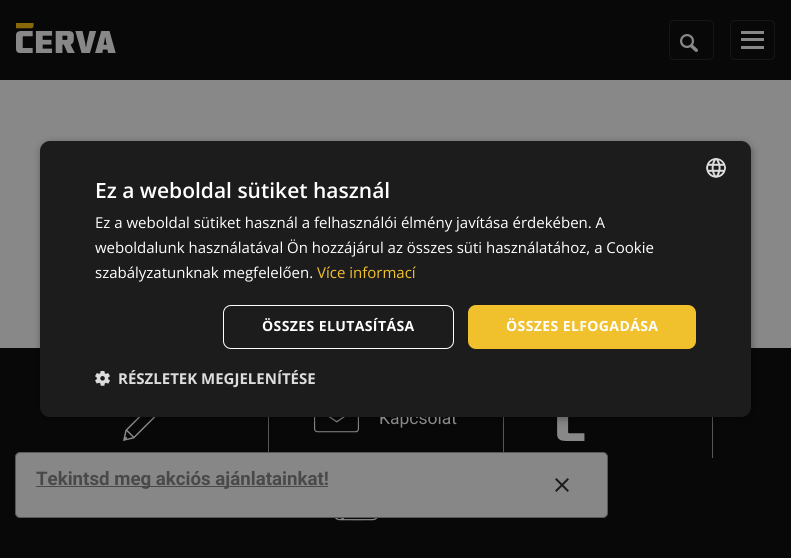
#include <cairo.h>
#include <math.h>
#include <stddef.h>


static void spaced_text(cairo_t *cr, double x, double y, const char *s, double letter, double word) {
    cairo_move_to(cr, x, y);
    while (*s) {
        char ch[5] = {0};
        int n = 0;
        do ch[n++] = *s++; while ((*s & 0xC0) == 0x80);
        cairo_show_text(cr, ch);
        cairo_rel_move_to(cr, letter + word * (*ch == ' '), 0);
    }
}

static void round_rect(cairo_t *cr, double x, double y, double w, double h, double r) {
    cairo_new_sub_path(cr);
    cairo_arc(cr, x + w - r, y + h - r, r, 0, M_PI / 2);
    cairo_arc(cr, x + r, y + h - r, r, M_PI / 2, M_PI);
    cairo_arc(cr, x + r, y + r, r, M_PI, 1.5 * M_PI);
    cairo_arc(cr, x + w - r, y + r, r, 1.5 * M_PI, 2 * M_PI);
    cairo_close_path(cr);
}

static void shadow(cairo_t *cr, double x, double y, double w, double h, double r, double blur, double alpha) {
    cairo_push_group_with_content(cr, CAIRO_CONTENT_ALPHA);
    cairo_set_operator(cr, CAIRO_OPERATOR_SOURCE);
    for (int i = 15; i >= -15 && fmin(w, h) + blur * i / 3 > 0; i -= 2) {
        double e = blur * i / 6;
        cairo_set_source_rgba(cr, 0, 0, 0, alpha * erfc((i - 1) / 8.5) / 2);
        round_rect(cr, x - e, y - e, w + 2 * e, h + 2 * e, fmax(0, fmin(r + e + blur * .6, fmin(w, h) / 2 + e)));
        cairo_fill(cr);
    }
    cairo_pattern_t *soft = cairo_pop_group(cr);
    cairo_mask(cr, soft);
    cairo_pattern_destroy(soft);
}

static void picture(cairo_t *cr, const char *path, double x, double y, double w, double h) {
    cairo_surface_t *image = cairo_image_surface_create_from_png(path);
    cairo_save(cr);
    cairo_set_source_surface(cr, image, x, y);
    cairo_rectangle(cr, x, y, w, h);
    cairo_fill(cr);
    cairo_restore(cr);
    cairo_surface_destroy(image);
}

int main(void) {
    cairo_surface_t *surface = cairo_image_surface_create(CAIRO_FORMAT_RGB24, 791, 558);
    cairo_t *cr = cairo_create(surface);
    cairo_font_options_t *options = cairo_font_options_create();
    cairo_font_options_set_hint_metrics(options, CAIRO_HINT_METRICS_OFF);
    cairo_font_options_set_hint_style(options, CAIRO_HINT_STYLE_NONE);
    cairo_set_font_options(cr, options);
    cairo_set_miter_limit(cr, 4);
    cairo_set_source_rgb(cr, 0.533, 0.533, 0.533);
    cairo_paint(cr);
    cairo_set_source_rgb(cr, 0.035, 0.035, 0.035);
    cairo_rectangle(cr, 0, 348, 791, 210);
    cairo_fill(cr);
    cairo_set_source_rgb(cr, 0.345, 0.345, 0.345);
    cairo_rectangle(cr, 268, 417, 1, 41);
    cairo_fill(cr);
    picture(cr, "img5.png", 123, 417, 33, 24);
    cairo_rectangle(cr, 503, 417, 1, 41);
    cairo_fill(cr);
    picture(cr, "img6.png", 314, 417, 45, 16);
    cairo_rectangle(cr, 712, 417, 1, 41);
    cairo_fill(cr);
    picture(cr, "img7.png", 557, 417, 28, 24);
    cairo_set_source_rgb(cr, 0, 0, 0);
    shadow(cr, 41, 143, 711, 276, 10, 4, 0.35);
    cairo_select_font_face(cr, "Roboto", CAIRO_FONT_SLANT_NORMAL, CAIRO_FONT_WEIGHT_NORMAL);
    cairo_set_font_size(cr, 17.5);
    cairo_set_source_rgb(cr, 0.533, 0.533, 0.533);
    cairo_move_to(cr, 379, 424);
    cairo_show_text(cr, "Kapcsolat");
    cairo_set_source_rgb(cr, 0.11, 0.11, 0.11);
    round_rect(cr, 40, 141, 711, 276, 10);
    cairo_fill(cr);
    picture(cr, "img1.png", 706, 158, 20, 20);
    cairo_select_font_face(cr, "Open Sans SemiBold", CAIRO_FONT_SLANT_NORMAL, CAIRO_FONT_WEIGHT_NORMAL);
    cairo_set_font_size(cr, 21);
    cairo_set_source_rgb(cr, 1, 1, 1);
    cairo_move_to(cr, 95, 198);
    cairo_show_text(cr, "Ez a weboldal sütiket használ");
    cairo_select_font_face(cr, "Open Sans", CAIRO_FONT_SLANT_NORMAL, CAIRO_FONT_WEIGHT_NORMAL);
    cairo_set_font_size(cr, 15);
    cairo_move_to(cr, 95, 228);
    cairo_show_text(cr, "Ez a weboldal sütiket használ a felhasználói élmény javítása érdekében. A");
    cairo_move_to(cr, 95, 253);
    cairo_show_text(cr, "weboldalunk használatával Ön hozzájárul az összes süti használatához, a Cookie");
    cairo_move_to(cr, 95, 278);
    cairo_show_text(cr, "szabályzatunknak megfelelően.");
    cairo_set_source_rgb(cr, 0.945, 0.753, 0.176);
    cairo_move_to(cr, 317, 278);
    cairo_show_text(cr, "Více informací");
    round_rect(cr, 223.5, 305.5, 230, 43, 7.5);
    cairo_set_source_rgb(cr, 1, 1, 1);
    cairo_set_line_width(cr, 1);
    cairo_stroke(cr);
    cairo_select_font_face(cr, "Open Sans", CAIRO_FONT_SLANT_NORMAL, CAIRO_FONT_WEIGHT_BOLD);
    cairo_set_font_size(cr, 14);
    spaced_text(cr, 262, 331, "ÖSSZES ELUTASÍTÁSA", 0.4, 0);
    cairo_set_source_rgb(cr, 0.945, 0.753, 0.176);
    round_rect(cr, 468, 305, 228, 44, 8);
    cairo_fill(cr);
    cairo_set_source_rgb(cr, 1, 1, 1);
    spaced_text(cr, 506, 331, "ÖSSZES ELFOGADÁSA", 0.4, 0);
    picture(cr, "img2.png", 95, 371, 15, 15);
    cairo_set_font_size(cr, 15);
    cairo_set_source_rgb(cr, 0.867, 0.867, 0.867);
    cairo_move_to(cr, 118, 384);
    cairo_show_text(cr, "RÉSZLETEK MEGJELENÍTÉSE");
    cairo_set_source_rgb(cr, 0.035, 0.035, 0.035);
    cairo_rectangle(cr, 0, 0, 791, 80);
    cairo_fill(cr);
    picture(cr, "img3.png", 16, 23, 100, 30);
    round_rect(cr, 669.5, 20.5, 44, 39, 4.5);
    cairo_set_source_rgb(cr, 0.086, 0.086, 0.086);
    cairo_stroke(cr);
    picture(cr, "img4.png", 680, 34, 18, 18);
    round_rect(cr, 730.5, 20.5, 44, 39, 4.5);
    cairo_stroke(cr);
    cairo_set_source_rgb(cr, 0.533, 0.533, 0.533);
    cairo_rectangle(cr, 741, 31, 23, 3);
    cairo_fill(cr);
    cairo_rectangle(cr, 741, 38, 23, 3);
    cairo_fill(cr);
    cairo_rectangle(cr, 741, 46, 23, 3);
    cairo_fill(cr);
    picture(cr, "img8.png", 335, 518, 43, 3);
    cairo_set_source_rgb(cr, 0.529, 0.529, 0.529);
    round_rect(cr, 15.5, 452.5, 592, 65, 4.5);
    cairo_fill_preserve(cr);
    cairo_set_source_rgb(cr, 0.345, 0.345, 0.345);
    cairo_stroke(cr);
    cairo_set_source_rgb(cr, 0.286, 0.286, 0.286);
    cairo_rectangle(cr, 36, 486, 292, 1);
    cairo_fill(cr);
    cairo_select_font_face(cr, "Roboto", CAIRO_FONT_SLANT_NORMAL, CAIRO_FONT_WEIGHT_BOLD);
    cairo_set_font_size(cr, 18.7);
    cairo_move_to(cr, 36, 485);
    cairo_show_text(cr, "Tekintsd meg akciós ajánlatainkat!");
    picture(cr, "img9.png", 555, 478, 14, 14);
    cairo_surface_write_to_png(surface, "page.png");
    cairo_font_options_destroy(options);
    cairo_destroy(cr);
    cairo_surface_destroy(surface);
    return 0;
}
